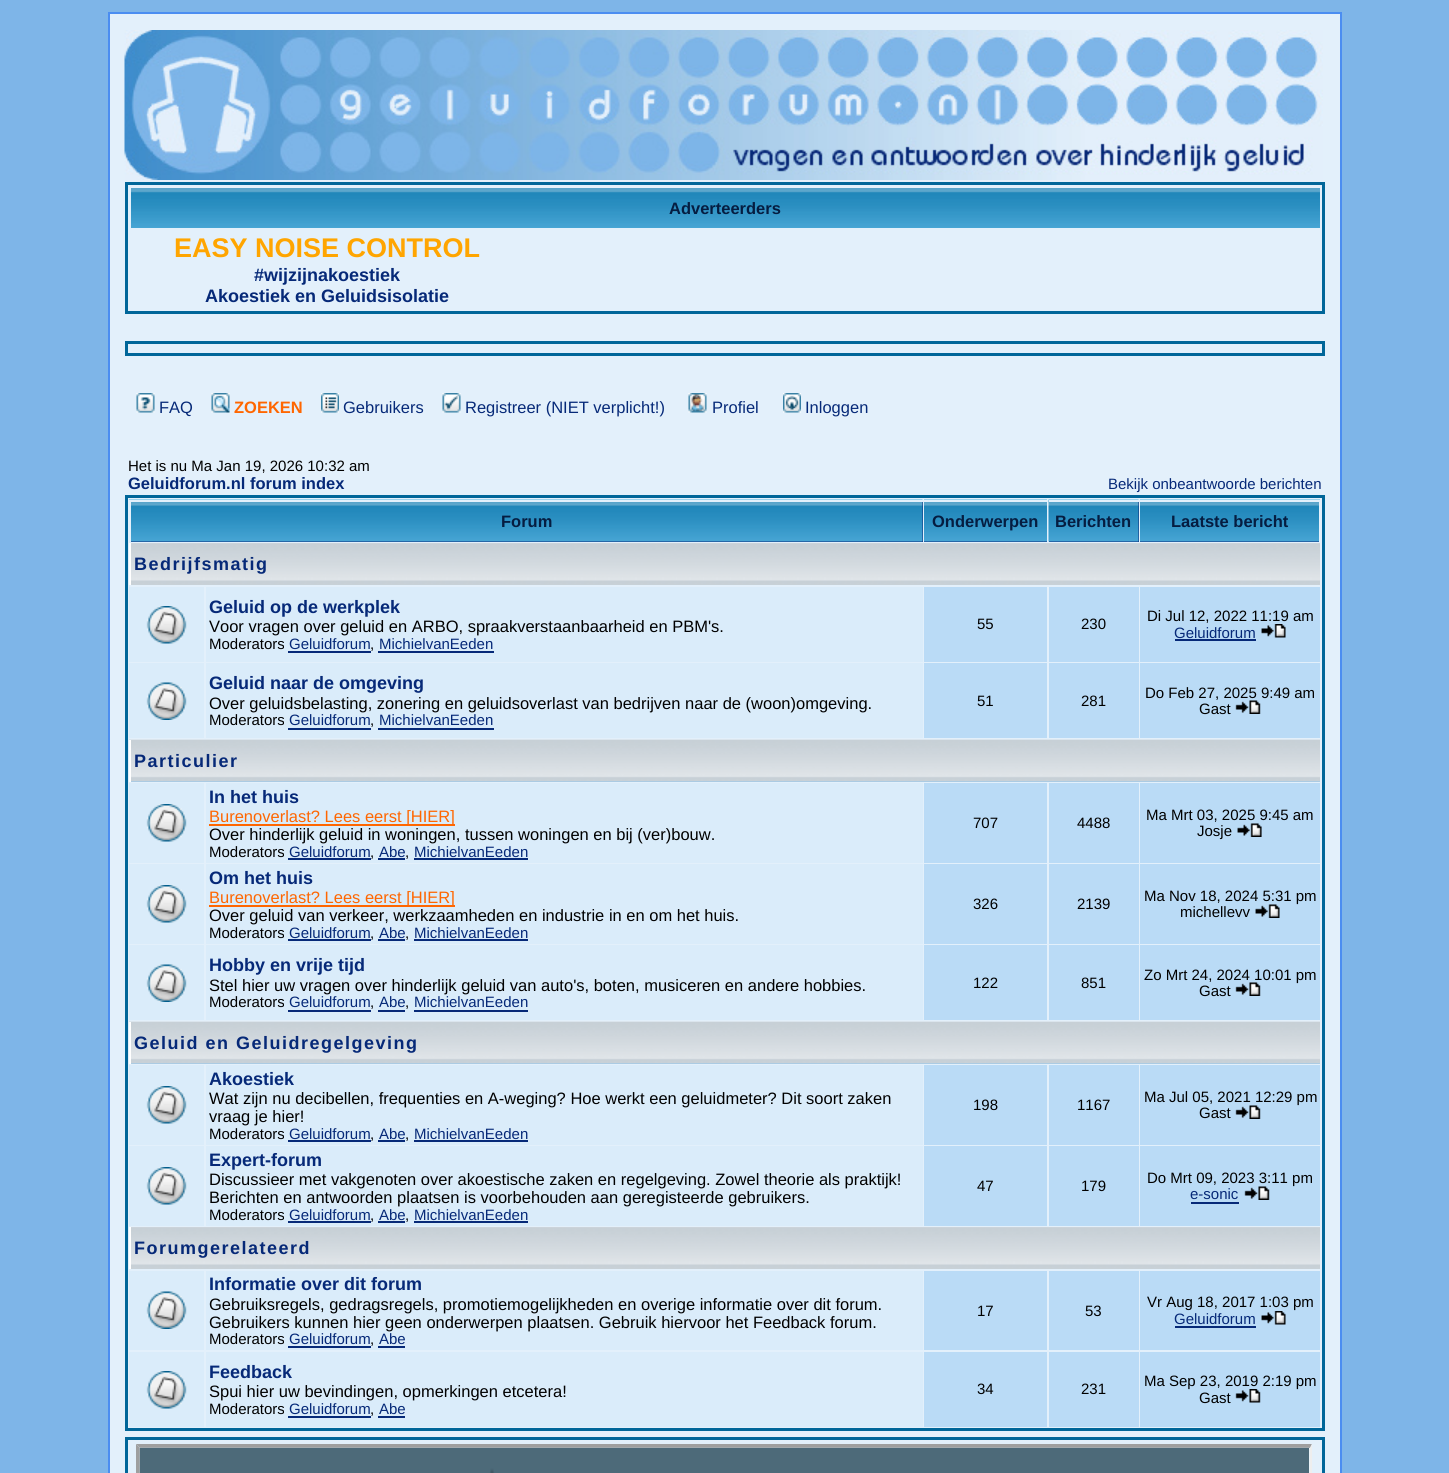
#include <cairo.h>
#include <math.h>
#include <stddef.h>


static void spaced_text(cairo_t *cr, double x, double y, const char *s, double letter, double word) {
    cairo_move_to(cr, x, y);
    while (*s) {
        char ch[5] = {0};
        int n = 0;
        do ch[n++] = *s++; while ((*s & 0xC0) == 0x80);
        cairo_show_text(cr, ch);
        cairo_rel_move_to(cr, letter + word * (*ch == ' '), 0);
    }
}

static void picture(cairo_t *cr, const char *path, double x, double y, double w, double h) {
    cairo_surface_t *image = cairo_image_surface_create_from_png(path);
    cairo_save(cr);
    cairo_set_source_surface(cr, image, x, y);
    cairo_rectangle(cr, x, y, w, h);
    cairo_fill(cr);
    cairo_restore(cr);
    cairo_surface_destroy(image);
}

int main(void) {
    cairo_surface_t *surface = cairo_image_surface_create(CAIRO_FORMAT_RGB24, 1449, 1473);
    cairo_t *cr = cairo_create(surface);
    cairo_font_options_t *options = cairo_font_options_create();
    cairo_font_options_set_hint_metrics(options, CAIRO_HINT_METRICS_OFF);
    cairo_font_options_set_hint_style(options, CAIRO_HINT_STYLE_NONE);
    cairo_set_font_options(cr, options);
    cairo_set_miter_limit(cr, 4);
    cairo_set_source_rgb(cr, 0.494, 0.71, 0.91);
    cairo_paint(cr);
    cairo_set_source_rgb(cr, 0.89, 0.941, 0.984);
    cairo_rectangle(cr, 110, 14, 1230, 1459);
    cairo_fill(cr);
    cairo_set_source_rgb(cr, 0.294, 0.553, 0.945);
    cairo_rectangle(cr, 108, 12, 1233, 2);
    cairo_fill(cr);
    cairo_rectangle(cr, 1340, 12, 2, 1461);
    cairo_fill(cr);
    cairo_rectangle(cr, 108, 12, 2, 1461);
    cairo_fill(cr);
    picture(cr, "img1.png", 124, 30, 1199, 150);
    cairo_rectangle(cr, 126.5, 183.5, 1197, 129);
    cairo_set_source_rgb(cr, 0, 0.4, 0.6);
    cairo_set_line_width(cr, 3);
    cairo_stroke(cr);
    picture(cr, "img2.png", 131, 188, 1189, 40);
    cairo_select_font_face(cr, "Liberation Sans", CAIRO_FONT_SLANT_NORMAL, CAIRO_FONT_WEIGHT_BOLD);
    cairo_set_font_size(cr, 16.5);
    cairo_set_source_rgb(cr, 0.02, 0.114, 0.255);
    cairo_move_to(cr, 669, 214);
    cairo_show_text(cr, "Adverteerders");
    cairo_set_font_size(cr, 27);
    cairo_set_source_rgb(cr, 1, 0.647, 0);
    cairo_move_to(cr, 174, 257);
    cairo_show_text(cr, "EASY NOISE CONTROL");
    cairo_set_font_size(cr, 18);
    cairo_set_source_rgb(cr, 0.027, 0.161, 0.471);
    cairo_move_to(cr, 254, 281);
    cairo_show_text(cr, "#wijzijnakoestiek");
    cairo_move_to(cr, 205, 302);
    cairo_show_text(cr, "Akoestiek en Geluidsisolatie");
    cairo_rectangle(cr, 126.5, 342.5, 1197, 12);
    cairo_set_source_rgb(cr, 0, 0.4, 0.6);
    cairo_stroke(cr);
    picture(cr, "img3.png", 136, 393, 19, 20);
    cairo_select_font_face(cr, "Liberation Sans", CAIRO_FONT_SLANT_NORMAL, CAIRO_FONT_WEIGHT_NORMAL);
    cairo_set_font_size(cr, 16.5);
    cairo_set_source_rgb(cr, 0.027, 0.161, 0.471);
    cairo_move_to(cr, 159, 413);
    cairo_show_text(cr, "FAQ");
    picture(cr, "img4.png", 211, 393, 19, 20);
    cairo_select_font_face(cr, "Liberation Sans", CAIRO_FONT_SLANT_NORMAL, CAIRO_FONT_WEIGHT_BOLD);
    cairo_set_source_rgb(cr, 1, 0.4, 0);
    cairo_move_to(cr, 234, 413);
    cairo_show_text(cr, "ZOEKEN");
    picture(cr, "img5.png", 321, 393, 18, 20);
    cairo_select_font_face(cr, "Liberation Sans", CAIRO_FONT_SLANT_NORMAL, CAIRO_FONT_WEIGHT_NORMAL);
    cairo_set_source_rgb(cr, 0.027, 0.161, 0.471);
    cairo_move_to(cr, 343, 413);
    cairo_show_text(cr, "Gebruikers");
    picture(cr, "img6.png", 442, 393, 19, 20);
    cairo_move_to(cr, 465, 413);
    cairo_show_text(cr, "Registreer (NIET verplicht!)");
    picture(cr, "img7.png", 688, 393, 19, 20);
    cairo_move_to(cr, 712, 413);
    cairo_show_text(cr, "Profiel");
    picture(cr, "img8.png", 783, 393, 18, 20);
    cairo_move_to(cr, 805, 413);
    cairo_show_text(cr, "Inloggen");
    cairo_set_font_size(cr, 15);
    cairo_set_source_rgb(cr, 0, 0, 0);
    cairo_move_to(cr, 128, 471);
    cairo_show_text(cr, "Het is nu Ma Jan 19, 2026 10:32 am");
    cairo_select_font_face(cr, "Liberation Sans", CAIRO_FONT_SLANT_NORMAL, CAIRO_FONT_WEIGHT_BOLD);
    cairo_set_font_size(cr, 16.5);
    cairo_set_source_rgb(cr, 0.027, 0.161, 0.471);
    cairo_move_to(cr, 128, 489);
    cairo_show_text(cr, "Geluidforum.nl forum index");
    cairo_select_font_face(cr, "Liberation Sans", CAIRO_FONT_SLANT_NORMAL, CAIRO_FONT_WEIGHT_NORMAL);
    cairo_set_font_size(cr, 15);
    cairo_move_to(cr, 1108, 489);
    cairo_show_text(cr, "Bekijk onbeantwoorde berichten");
    cairo_rectangle(cr, 126.5, 496.5, 1197, 933);
    cairo_set_source_rgb(cr, 0, 0.4, 0.6);
    cairo_stroke(cr);
    cairo_set_source_rgb(cr, 0.027, 0.161, 0.471);
    cairo_rectangle(cr, 131, 502, 792, 40);
    cairo_fill(cr);
    picture(cr, "img9.png", 129, 499, 794, 43);
    cairo_set_source_rgb(cr, 0.89, 0.941, 0.984);
    cairo_rectangle(cr, 129, 500, 794, 2);
    cairo_fill(cr);
    cairo_rectangle(cr, 129, 500, 2, 42);
    cairo_fill(cr);
    cairo_select_font_face(cr, "Liberation Sans", CAIRO_FONT_SLANT_NORMAL, CAIRO_FONT_WEIGHT_BOLD);
    cairo_set_font_size(cr, 16.5);
    cairo_set_source_rgb(cr, 0.02, 0.114, 0.255);
    cairo_move_to(cr, 501, 527);
    cairo_show_text(cr, "Forum");
    cairo_set_source_rgb(cr, 0.027, 0.161, 0.471);
    cairo_rectangle(cr, 924, 541, 123, 1);
    cairo_fill(cr);
    picture(cr, "img10.png", 924, 499, 123, 43);
    cairo_set_source_rgb(cr, 0.89, 0.941, 0.984);
    cairo_rectangle(cr, 924, 500, 123, 2);
    cairo_fill(cr);
    cairo_set_source_rgb(cr, 0.02, 0.114, 0.255);
    cairo_move_to(cr, 932, 527);
    cairo_show_text(cr, "Onderwerpen");
    cairo_set_source_rgb(cr, 0.027, 0.161, 0.471);
    cairo_rectangle(cr, 1049, 502, 90, 40);
    cairo_fill(cr);
    picture(cr, "img11.png", 1048, 499, 91, 43);
    cairo_set_source_rgb(cr, 0.89, 0.941, 0.984);
    cairo_rectangle(cr, 1049, 500, 90, 2);
    cairo_fill(cr);
    cairo_set_source_rgb(cr, 0.02, 0.114, 0.255);
    cairo_move_to(cr, 1055, 527);
    cairo_show_text(cr, "Berichten");
    cairo_set_source_rgb(cr, 0.027, 0.161, 0.471);
    cairo_rectangle(cr, 1140, 541, 179, 1);
    cairo_fill(cr);
    picture(cr, "img12.png", 1140, 499, 180, 43);
    cairo_set_source_rgb(cr, 0.89, 0.941, 0.984);
    cairo_rectangle(cr, 1140, 500, 180, 2);
    cairo_fill(cr);
    cairo_rectangle(cr, 1319, 500, 1, 42);
    cairo_fill(cr);
    cairo_set_source_rgb(cr, 0.02, 0.114, 0.255);
    cairo_move_to(cr, 1171, 527);
    cairo_show_text(cr, "Laatste bericht");
    picture(cr, "img13.png", 131, 543, 1189, 42);
    cairo_set_source_rgb(cr, 1, 1, 1);
    cairo_rectangle(cr, 129, 543, 2, 42);
    cairo_fill(cr);
    cairo_set_font_size(cr, 18);
    cairo_set_source_rgb(cr, 0.027, 0.161, 0.471);
    spaced_text(cr, 134, 570, "Bedrijfsmatig", 1.5, 0);
    cairo_set_source_rgb(cr, 0.855, 0.925, 0.98);
    cairo_rectangle(cr, 129, 587, 75, 75);
    cairo_fill(cr);
    picture(cr, "img14.png", 146, 606, 41, 38);
    cairo_rectangle(cr, 206, 587, 717, 75);
    cairo_fill(cr);
    cairo_set_source_rgb(cr, 0.027, 0.161, 0.471);
    cairo_move_to(cr, 209, 613);
    cairo_show_text(cr, "Geluid op de werkplek");
    cairo_select_font_face(cr, "Liberation Sans", CAIRO_FONT_SLANT_NORMAL, CAIRO_FONT_WEIGHT_NORMAL);
    cairo_set_font_size(cr, 16.5);
    cairo_set_source_rgb(cr, 0, 0, 0);
    cairo_move_to(cr, 209, 632);
    cairo_show_text(cr, "Voor vragen over geluid en ARBO, spraakverstaanbaarheid en PBM's.");
    cairo_set_font_size(cr, 15);
    cairo_move_to(cr, 209, 649);
    cairo_show_text(cr, "Moderators");
    cairo_set_source_rgb(cr, 0.027, 0.161, 0.471);
    cairo_move_to(cr, 289, 649);
    cairo_show_text(cr, "Geluidforum");
    cairo_set_source_rgb(cr, 0, 0, 0);
    cairo_move_to(cr, 370, 649);
    cairo_show_text(cr, ",");
    cairo_set_source_rgb(cr, 0.027, 0.161, 0.471);
    cairo_rectangle(cr, 288, 651, 83, 2);
    cairo_fill(cr);
    cairo_rectangle(cr, 378, 651, 116, 2);
    cairo_fill(cr);
    cairo_move_to(cr, 379, 649);
    cairo_show_text(cr, "MichielvanEeden");
    cairo_set_source_rgb(cr, 0.729, 0.859, 0.961);
    cairo_rectangle(cr, 924, 587, 123, 75);
    cairo_fill(cr);
    cairo_set_source_rgb(cr, 0, 0, 0);
    cairo_move_to(cr, 977, 629);
    cairo_show_text(cr, "55");
    cairo_set_source_rgb(cr, 0.729, 0.859, 0.961);
    cairo_rectangle(cr, 1049, 587, 90, 75);
    cairo_fill(cr);
    cairo_set_source_rgb(cr, 0, 0, 0);
    cairo_move_to(cr, 1081, 629);
    cairo_show_text(cr, "230");
    cairo_set_source_rgb(cr, 0.729, 0.859, 0.961);
    cairo_rectangle(cr, 1140, 587, 180, 75);
    cairo_fill(cr);
    cairo_set_source_rgb(cr, 0, 0, 0);
    cairo_move_to(cr, 1147, 621);
    cairo_show_text(cr, "Di Jul 12, 2022 11:19 am");
    cairo_set_source_rgb(cr, 0.027, 0.161, 0.471);
    cairo_move_to(cr, 1174, 638);
    cairo_show_text(cr, "Geluidforum");
    cairo_rectangle(cr, 1175, 639, 81, 2);
    cairo_fill(cr);
    picture(cr, "img15.png", 1261, 624, 25, 14);
    cairo_set_source_rgb(cr, 0.855, 0.925, 0.98);
    cairo_rectangle(cr, 129, 663, 75, 75);
    cairo_fill(cr);
    picture(cr, "img16.png", 146, 682, 41, 38);
    cairo_rectangle(cr, 206, 663, 717, 75);
    cairo_fill(cr);
    cairo_select_font_face(cr, "Liberation Sans", CAIRO_FONT_SLANT_NORMAL, CAIRO_FONT_WEIGHT_BOLD);
    cairo_set_font_size(cr, 18);
    cairo_set_source_rgb(cr, 0.027, 0.161, 0.471);
    cairo_move_to(cr, 209, 689);
    cairo_show_text(cr, "Geluid naar de omgeving");
    cairo_select_font_face(cr, "Liberation Sans", CAIRO_FONT_SLANT_NORMAL, CAIRO_FONT_WEIGHT_NORMAL);
    cairo_set_font_size(cr, 16.5);
    cairo_set_source_rgb(cr, 0, 0, 0);
    cairo_move_to(cr, 209, 709);
    cairo_show_text(cr, "Over geluidsbelasting, zonering en geluidsoverlast van bedrijven naar de (woon)omgeving.");
    cairo_set_font_size(cr, 15);
    cairo_move_to(cr, 209, 725);
    cairo_show_text(cr, "Moderators");
    cairo_set_source_rgb(cr, 0.027, 0.161, 0.471);
    cairo_move_to(cr, 289, 725);
    cairo_show_text(cr, "Geluidforum");
    cairo_set_source_rgb(cr, 0, 0, 0);
    cairo_move_to(cr, 370, 725);
    cairo_show_text(cr, ",");
    cairo_set_source_rgb(cr, 0.027, 0.161, 0.471);
    cairo_rectangle(cr, 288, 728, 83, 2);
    cairo_fill(cr);
    cairo_rectangle(cr, 378, 728, 116, 2);
    cairo_fill(cr);
    cairo_move_to(cr, 379, 725);
    cairo_show_text(cr, "MichielvanEeden");
    cairo_set_source_rgb(cr, 0.729, 0.859, 0.961);
    cairo_rectangle(cr, 924, 663, 123, 75);
    cairo_fill(cr);
    cairo_set_source_rgb(cr, 0, 0, 0);
    cairo_move_to(cr, 977, 706);
    cairo_show_text(cr, "51");
    cairo_set_source_rgb(cr, 0.729, 0.859, 0.961);
    cairo_rectangle(cr, 1049, 663, 90, 75);
    cairo_fill(cr);
    cairo_set_source_rgb(cr, 0, 0, 0);
    cairo_move_to(cr, 1081, 706);
    cairo_show_text(cr, "281");
    cairo_set_source_rgb(cr, 0.729, 0.859, 0.961);
    cairo_rectangle(cr, 1140, 663, 180, 75);
    cairo_fill(cr);
    cairo_set_source_rgb(cr, 0, 0, 0);
    cairo_move_to(cr, 1145, 698);
    cairo_show_text(cr, "Do Feb 27, 2025 9:49 am");
    cairo_move_to(cr, 1199, 714);
    cairo_show_text(cr, "Gast");
    picture(cr, "img17.png", 1235, 700, 26, 14);
    cairo_set_source_rgb(cr, 0.561, 0.773, 0.937);
    cairo_rectangle(cr, 131, 781, 1189, 1);
    cairo_fill(cr);
    picture(cr, "img18.png", 129, 739, 1191, 43);
    cairo_set_source_rgb(cr, 1, 1, 1);
    cairo_rectangle(cr, 129, 740, 2, 42);
    cairo_fill(cr);
    cairo_select_font_face(cr, "Liberation Sans", CAIRO_FONT_SLANT_NORMAL, CAIRO_FONT_WEIGHT_BOLD);
    cairo_set_font_size(cr, 18);
    cairo_set_source_rgb(cr, 0.027, 0.161, 0.471);
    spaced_text(cr, 134, 767, "Particulier", 1.5, 0);
    cairo_set_source_rgb(cr, 0.855, 0.925, 0.98);
    cairo_rectangle(cr, 129, 783, 75, 80);
    cairo_fill(cr);
    picture(cr, "img14.png", 146, 804, 41, 38);
    cairo_rectangle(cr, 206, 783, 717, 80);
    cairo_fill(cr);
    cairo_set_source_rgb(cr, 0.027, 0.161, 0.471);
    cairo_move_to(cr, 209, 803);
    cairo_show_text(cr, "In het huis");
    cairo_set_source_rgb(cr, 1, 0.4, 0);
    cairo_rectangle(cr, 209, 824, 246, 2);
    cairo_fill(cr);
    cairo_select_font_face(cr, "Liberation Sans", CAIRO_FONT_SLANT_NORMAL, CAIRO_FONT_WEIGHT_NORMAL);
    cairo_set_font_size(cr, 16.5);
    cairo_move_to(cr, 209, 822);
    cairo_show_text(cr, "Burenoverlast? Lees eerst [HIER]");
    cairo_set_source_rgb(cr, 0, 0, 0);
    cairo_move_to(cr, 209, 840);
    cairo_show_text(cr, "Over hinderlijk geluid in woningen, tussen woningen en bij (ver)bouw.");
    cairo_set_font_size(cr, 15);
    cairo_move_to(cr, 209, 857);
    cairo_show_text(cr, "Moderators");
    cairo_set_source_rgb(cr, 0.027, 0.161, 0.471);
    cairo_move_to(cr, 289, 857);
    cairo_show_text(cr, "Geluidforum");
    cairo_set_source_rgb(cr, 0, 0, 0);
    cairo_move_to(cr, 370, 857);
    cairo_show_text(cr, ",");
    cairo_set_source_rgb(cr, 0.027, 0.161, 0.471);
    cairo_rectangle(cr, 288, 858, 83, 2);
    cairo_fill(cr);
    cairo_move_to(cr, 379, 857);
    cairo_show_text(cr, "Abe");
    cairo_set_source_rgb(cr, 0, 0, 0);
    cairo_move_to(cr, 405, 857);
    cairo_show_text(cr, ",");
    cairo_set_source_rgb(cr, 0.027, 0.161, 0.471);
    cairo_rectangle(cr, 378, 858, 27, 2);
    cairo_fill(cr);
    cairo_rectangle(cr, 414, 858, 114, 2);
    cairo_fill(cr);
    cairo_move_to(cr, 414, 857);
    cairo_show_text(cr, "MichielvanEeden");
    cairo_set_source_rgb(cr, 0.729, 0.859, 0.961);
    cairo_rectangle(cr, 924, 783, 123, 80);
    cairo_fill(cr);
    cairo_set_source_rgb(cr, 0, 0, 0);
    cairo_move_to(cr, 973, 828);
    cairo_show_text(cr, "707");
    cairo_set_source_rgb(cr, 0.729, 0.859, 0.961);
    cairo_rectangle(cr, 1049, 783, 90, 80);
    cairo_fill(cr);
    cairo_set_source_rgb(cr, 0, 0, 0);
    cairo_move_to(cr, 1077, 828);
    cairo_show_text(cr, "4488");
    cairo_set_source_rgb(cr, 0.729, 0.859, 0.961);
    cairo_rectangle(cr, 1140, 783, 180, 80);
    cairo_fill(cr);
    cairo_set_source_rgb(cr, 0, 0, 0);
    cairo_move_to(cr, 1146, 820);
    cairo_show_text(cr, "Ma Mrt 03, 2025 9:45 am");
    cairo_move_to(cr, 1197, 836);
    cairo_show_text(cr, "Josje");
    picture(cr, "img19.png", 1237, 823, 25, 14);
    cairo_set_source_rgb(cr, 0.855, 0.925, 0.98);
    cairo_rectangle(cr, 129, 864, 75, 80);
    cairo_fill(cr);
    picture(cr, "img14.png", 146, 885, 41, 38);
    cairo_rectangle(cr, 206, 864, 717, 80);
    cairo_fill(cr);
    cairo_select_font_face(cr, "Liberation Sans", CAIRO_FONT_SLANT_NORMAL, CAIRO_FONT_WEIGHT_BOLD);
    cairo_set_font_size(cr, 18);
    cairo_set_source_rgb(cr, 0.027, 0.161, 0.471);
    cairo_move_to(cr, 209, 884);
    cairo_show_text(cr, "Om het huis");
    cairo_set_source_rgb(cr, 1, 0.4, 0);
    cairo_rectangle(cr, 209, 905, 246, 2);
    cairo_fill(cr);
    cairo_select_font_face(cr, "Liberation Sans", CAIRO_FONT_SLANT_NORMAL, CAIRO_FONT_WEIGHT_NORMAL);
    cairo_set_font_size(cr, 16.5);
    cairo_move_to(cr, 209, 903);
    cairo_show_text(cr, "Burenoverlast? Lees eerst [HIER]");
    cairo_set_source_rgb(cr, 0, 0, 0);
    cairo_move_to(cr, 209, 921);
    cairo_show_text(cr, "Over geluid van verkeer, werkzaamheden en industrie in en om het huis.");
    cairo_set_font_size(cr, 15);
    cairo_move_to(cr, 209, 938);
    cairo_show_text(cr, "Moderators");
    cairo_set_source_rgb(cr, 0.027, 0.161, 0.471);
    cairo_move_to(cr, 289, 938);
    cairo_show_text(cr, "Geluidforum");
    cairo_set_source_rgb(cr, 0, 0, 0);
    cairo_move_to(cr, 370, 938);
    cairo_show_text(cr, ",");
    cairo_set_source_rgb(cr, 0.027, 0.161, 0.471);
    cairo_rectangle(cr, 288, 939, 83, 2);
    cairo_fill(cr);
    cairo_move_to(cr, 379, 938);
    cairo_show_text(cr, "Abe");
    cairo_set_source_rgb(cr, 0, 0, 0);
    cairo_move_to(cr, 405, 938);
    cairo_show_text(cr, ",");
    cairo_set_source_rgb(cr, 0.027, 0.161, 0.471);
    cairo_rectangle(cr, 378, 939, 27, 2);
    cairo_fill(cr);
    cairo_rectangle(cr, 414, 939, 114, 2);
    cairo_fill(cr);
    cairo_move_to(cr, 414, 938);
    cairo_show_text(cr, "MichielvanEeden");
    cairo_set_source_rgb(cr, 0.729, 0.859, 0.961);
    cairo_rectangle(cr, 924, 864, 123, 80);
    cairo_fill(cr);
    cairo_set_source_rgb(cr, 0, 0, 0);
    cairo_move_to(cr, 973, 909);
    cairo_show_text(cr, "326");
    cairo_set_source_rgb(cr, 0.729, 0.859, 0.961);
    cairo_rectangle(cr, 1049, 864, 90, 80);
    cairo_fill(cr);
    cairo_set_source_rgb(cr, 0, 0, 0);
    cairo_move_to(cr, 1077, 909);
    cairo_show_text(cr, "2139");
    cairo_set_source_rgb(cr, 0.729, 0.859, 0.961);
    cairo_rectangle(cr, 1140, 864, 180, 80);
    cairo_fill(cr);
    cairo_set_source_rgb(cr, 0, 0, 0);
    cairo_move_to(cr, 1144, 901);
    cairo_show_text(cr, "Ma Nov 18, 2024 5:31 pm");
    cairo_move_to(cr, 1180, 917);
    cairo_show_text(cr, "michellevv");
    picture(cr, "img20.png", 1255, 904, 25, 14);
    cairo_set_source_rgb(cr, 0.855, 0.925, 0.98);
    cairo_rectangle(cr, 129, 945, 75, 75);
    cairo_fill(cr);
    picture(cr, "img16.png", 146, 964, 41, 38);
    cairo_rectangle(cr, 206, 945, 717, 75);
    cairo_fill(cr);
    cairo_select_font_face(cr, "Liberation Sans", CAIRO_FONT_SLANT_NORMAL, CAIRO_FONT_WEIGHT_BOLD);
    cairo_set_font_size(cr, 18);
    cairo_set_source_rgb(cr, 0.027, 0.161, 0.471);
    cairo_move_to(cr, 209, 971);
    cairo_show_text(cr, "Hobby en vrije tijd");
    cairo_select_font_face(cr, "Liberation Sans", CAIRO_FONT_SLANT_NORMAL, CAIRO_FONT_WEIGHT_NORMAL);
    cairo_set_font_size(cr, 16.5);
    cairo_set_source_rgb(cr, 0, 0, 0);
    cairo_move_to(cr, 209, 991);
    cairo_show_text(cr, "Stel hier uw vragen over hinderlijk geluid van auto's, boten, musiceren en andere hobbies.");
    cairo_set_font_size(cr, 15);
    cairo_move_to(cr, 209, 1007);
    cairo_show_text(cr, "Moderators");
    cairo_set_source_rgb(cr, 0.027, 0.161, 0.471);
    cairo_move_to(cr, 289, 1007);
    cairo_show_text(cr, "Geluidforum");
    cairo_set_source_rgb(cr, 0, 0, 0);
    cairo_move_to(cr, 370, 1007);
    cairo_show_text(cr, ",");
    cairo_set_source_rgb(cr, 0.027, 0.161, 0.471);
    cairo_rectangle(cr, 288, 1010, 83, 2);
    cairo_fill(cr);
    cairo_move_to(cr, 379, 1007);
    cairo_show_text(cr, "Abe");
    cairo_set_source_rgb(cr, 0, 0, 0);
    cairo_move_to(cr, 405, 1007);
    cairo_show_text(cr, ",");
    cairo_set_source_rgb(cr, 0.027, 0.161, 0.471);
    cairo_rectangle(cr, 378, 1010, 27, 2);
    cairo_fill(cr);
    cairo_rectangle(cr, 414, 1010, 114, 2);
    cairo_fill(cr);
    cairo_move_to(cr, 414, 1007);
    cairo_show_text(cr, "MichielvanEeden");
    cairo_set_source_rgb(cr, 0.729, 0.859, 0.961);
    cairo_rectangle(cr, 924, 945, 123, 75);
    cairo_fill(cr);
    cairo_set_source_rgb(cr, 0, 0, 0);
    cairo_move_to(cr, 973, 988);
    cairo_show_text(cr, "122");
    cairo_set_source_rgb(cr, 0.729, 0.859, 0.961);
    cairo_rectangle(cr, 1049, 945, 90, 75);
    cairo_fill(cr);
    cairo_set_source_rgb(cr, 0, 0, 0);
    cairo_move_to(cr, 1081, 988);
    cairo_show_text(cr, "851");
    cairo_set_source_rgb(cr, 0.729, 0.859, 0.961);
    cairo_rectangle(cr, 1140, 945, 180, 75);
    cairo_fill(cr);
    cairo_set_source_rgb(cr, 0, 0, 0);
    cairo_move_to(cr, 1144, 980);
    cairo_show_text(cr, "Zo Mrt 24, 2024 10:01 pm");
    cairo_move_to(cr, 1199, 996);
    cairo_show_text(cr, "Gast");
    picture(cr, "img17.png", 1235, 982, 26, 14);
    cairo_set_source_rgb(cr, 0.561, 0.773, 0.937);
    cairo_rectangle(cr, 131, 1063, 1189, 1);
    cairo_fill(cr);
    picture(cr, "img18.png", 129, 1021, 1191, 43);
    cairo_set_source_rgb(cr, 1, 1, 1);
    cairo_rectangle(cr, 129, 1022, 2, 42);
    cairo_fill(cr);
    cairo_select_font_face(cr, "Liberation Sans", CAIRO_FONT_SLANT_NORMAL, CAIRO_FONT_WEIGHT_BOLD);
    cairo_set_font_size(cr, 18);
    cairo_set_source_rgb(cr, 0.027, 0.161, 0.471);
    spaced_text(cr, 134, 1049, "Geluid en Geluidregelgeving", 1.5, 0);
    cairo_set_source_rgb(cr, 0.855, 0.925, 0.98);
    cairo_rectangle(cr, 129, 1065, 75, 80);
    cairo_fill(cr);
    picture(cr, "img14.png", 146, 1086, 41, 38);
    cairo_rectangle(cr, 206, 1065, 717, 80);
    cairo_fill(cr);
    cairo_set_source_rgb(cr, 0.027, 0.161, 0.471);
    cairo_move_to(cr, 209, 1085);
    cairo_show_text(cr, "Akoestiek");
    cairo_select_font_face(cr, "Liberation Sans", CAIRO_FONT_SLANT_NORMAL, CAIRO_FONT_WEIGHT_NORMAL);
    cairo_set_font_size(cr, 16.5);
    cairo_set_source_rgb(cr, 0, 0, 0);
    cairo_move_to(cr, 209, 1104);
    cairo_show_text(cr, "Wat zijn nu decibellen, frequenties en A-weging? Hoe werkt een geluidmeter? Dit soort zaken");
    cairo_move_to(cr, 209, 1122);
    cairo_show_text(cr, "vraag je hier!");
    cairo_set_font_size(cr, 15);
    cairo_move_to(cr, 209, 1139);
    cairo_show_text(cr, "Moderators");
    cairo_set_source_rgb(cr, 0.027, 0.161, 0.471);
    cairo_move_to(cr, 289, 1139);
    cairo_show_text(cr, "Geluidforum");
    cairo_set_source_rgb(cr, 0, 0, 0);
    cairo_move_to(cr, 370, 1139);
    cairo_show_text(cr, ",");
    cairo_set_source_rgb(cr, 0.027, 0.161, 0.471);
    cairo_rectangle(cr, 288, 1140, 83, 2);
    cairo_fill(cr);
    cairo_move_to(cr, 379, 1139);
    cairo_show_text(cr, "Abe");
    cairo_set_source_rgb(cr, 0, 0, 0);
    cairo_move_to(cr, 405, 1139);
    cairo_show_text(cr, ",");
    cairo_set_source_rgb(cr, 0.027, 0.161, 0.471);
    cairo_rectangle(cr, 378, 1140, 27, 2);
    cairo_fill(cr);
    cairo_rectangle(cr, 414, 1140, 114, 2);
    cairo_fill(cr);
    cairo_move_to(cr, 414, 1139);
    cairo_show_text(cr, "MichielvanEeden");
    cairo_set_source_rgb(cr, 0.729, 0.859, 0.961);
    cairo_rectangle(cr, 924, 1065, 123, 80);
    cairo_fill(cr);
    cairo_set_source_rgb(cr, 0, 0, 0);
    cairo_move_to(cr, 973, 1110);
    cairo_show_text(cr, "198");
    cairo_set_source_rgb(cr, 0.729, 0.859, 0.961);
    cairo_rectangle(cr, 1049, 1065, 90, 80);
    cairo_fill(cr);
    cairo_set_source_rgb(cr, 0, 0, 0);
    cairo_move_to(cr, 1077, 1110);
    cairo_show_text(cr, "1167");
    cairo_set_source_rgb(cr, 0.729, 0.859, 0.961);
    cairo_rectangle(cr, 1140, 1065, 180, 80);
    cairo_fill(cr);
    cairo_set_source_rgb(cr, 0, 0, 0);
    cairo_move_to(cr, 1144, 1102);
    cairo_show_text(cr, "Ma Jul 05, 2021 12:29 pm");
    cairo_move_to(cr, 1199, 1118);
    cairo_show_text(cr, "Gast");
    picture(cr, "img17.png", 1235, 1105, 26, 14);
    cairo_set_source_rgb(cr, 0.855, 0.925, 0.98);
    cairo_rectangle(cr, 129, 1146, 75, 80);
    cairo_fill(cr);
    picture(cr, "img14.png", 146, 1167, 41, 38);
    cairo_rectangle(cr, 206, 1146, 717, 80);
    cairo_fill(cr);
    cairo_select_font_face(cr, "Liberation Sans", CAIRO_FONT_SLANT_NORMAL, CAIRO_FONT_WEIGHT_BOLD);
    cairo_set_font_size(cr, 18);
    cairo_set_source_rgb(cr, 0.027, 0.161, 0.471);
    cairo_move_to(cr, 209, 1166);
    cairo_show_text(cr, "Expert-forum");
    cairo_select_font_face(cr, "Liberation Sans", CAIRO_FONT_SLANT_NORMAL, CAIRO_FONT_WEIGHT_NORMAL);
    cairo_set_font_size(cr, 16.5);
    cairo_set_source_rgb(cr, 0, 0, 0);
    cairo_move_to(cr, 209, 1185);
    cairo_show_text(cr, "Discussieer met vakgenoten over akoestische zaken en regelgeving. Zowel theorie als praktijk!");
    cairo_move_to(cr, 209, 1203);
    cairo_show_text(cr, "Berichten en antwoorden plaatsen is voorbehouden aan geregisteerde gebruikers.");
    cairo_set_font_size(cr, 15);
    cairo_move_to(cr, 209, 1220);
    cairo_show_text(cr, "Moderators");
    cairo_set_source_rgb(cr, 0.027, 0.161, 0.471);
    cairo_move_to(cr, 289, 1220);
    cairo_show_text(cr, "Geluidforum");
    cairo_set_source_rgb(cr, 0, 0, 0);
    cairo_move_to(cr, 370, 1220);
    cairo_show_text(cr, ",");
    cairo_set_source_rgb(cr, 0.027, 0.161, 0.471);
    cairo_rectangle(cr, 288, 1221, 83, 2);
    cairo_fill(cr);
    cairo_move_to(cr, 379, 1220);
    cairo_show_text(cr, "Abe");
    cairo_set_source_rgb(cr, 0, 0, 0);
    cairo_move_to(cr, 405, 1220);
    cairo_show_text(cr, ",");
    cairo_set_source_rgb(cr, 0.027, 0.161, 0.471);
    cairo_rectangle(cr, 378, 1221, 27, 2);
    cairo_fill(cr);
    cairo_rectangle(cr, 414, 1221, 114, 2);
    cairo_fill(cr);
    cairo_move_to(cr, 414, 1220);
    cairo_show_text(cr, "MichielvanEeden");
    cairo_set_source_rgb(cr, 0.729, 0.859, 0.961);
    cairo_rectangle(cr, 924, 1146, 123, 80);
    cairo_fill(cr);
    cairo_set_source_rgb(cr, 0, 0, 0);
    cairo_move_to(cr, 977, 1191);
    cairo_show_text(cr, "47");
    cairo_set_source_rgb(cr, 0.729, 0.859, 0.961);
    cairo_rectangle(cr, 1049, 1146, 90, 80);
    cairo_fill(cr);
    cairo_set_source_rgb(cr, 0, 0, 0);
    cairo_move_to(cr, 1081, 1191);
    cairo_show_text(cr, "179");
    cairo_set_source_rgb(cr, 0.729, 0.859, 0.961);
    cairo_rectangle(cr, 1140, 1146, 180, 80);
    cairo_fill(cr);
    cairo_set_source_rgb(cr, 0, 0, 0);
    cairo_move_to(cr, 1147, 1183);
    cairo_show_text(cr, "Do Mrt 09, 2023 3:11 pm");
    cairo_set_source_rgb(cr, 0.027, 0.161, 0.471);
    cairo_move_to(cr, 1190, 1199);
    cairo_show_text(cr, "e-sonic");
    cairo_rectangle(cr, 1191, 1202, 48, 2);
    cairo_fill(cr);
    picture(cr, "img17.png", 1244, 1186, 26, 14);
    picture(cr, "img13.png", 131, 1227, 1189, 42);
    cairo_set_source_rgb(cr, 1, 1, 1);
    cairo_rectangle(cr, 129, 1227, 2, 42);
    cairo_fill(cr);
    cairo_select_font_face(cr, "Liberation Sans", CAIRO_FONT_SLANT_NORMAL, CAIRO_FONT_WEIGHT_BOLD);
    cairo_set_font_size(cr, 18);
    cairo_set_source_rgb(cr, 0.027, 0.161, 0.471);
    spaced_text(cr, 134, 1254, "Forumgerelateerd", 1.5, 0);
    cairo_set_source_rgb(cr, 0.855, 0.925, 0.98);
    cairo_rectangle(cr, 129, 1271, 75, 79);
    cairo_fill(cr);
    picture(cr, "img16.png", 146, 1291, 41, 38);
    cairo_rectangle(cr, 206, 1271, 717, 79);
    cairo_fill(cr);
    cairo_set_source_rgb(cr, 0.027, 0.161, 0.471);
    cairo_move_to(cr, 209, 1290);
    cairo_show_text(cr, "Informatie over dit forum");
    cairo_select_font_face(cr, "Liberation Sans", CAIRO_FONT_SLANT_NORMAL, CAIRO_FONT_WEIGHT_NORMAL);
    cairo_set_font_size(cr, 16.5);
    cairo_set_source_rgb(cr, 0, 0, 0);
    cairo_move_to(cr, 209, 1310);
    cairo_show_text(cr, "Gebruiksregels, gedragsregels, promotiemogelijkheden en overige informatie over dit forum.");
    cairo_move_to(cr, 209, 1328);
    cairo_show_text(cr, "Gebruikers kunnen hier geen onderwerpen plaatsen. Gebruik hiervoor het Feedback forum.");
    cairo_set_font_size(cr, 15);
    cairo_move_to(cr, 209, 1344);
    cairo_show_text(cr, "Moderators");
    cairo_set_source_rgb(cr, 0.027, 0.161, 0.471);
    cairo_move_to(cr, 289, 1344);
    cairo_show_text(cr, "Geluidforum");
    cairo_set_source_rgb(cr, 0, 0, 0);
    cairo_move_to(cr, 370, 1344);
    cairo_show_text(cr, ",");
    cairo_set_source_rgb(cr, 0.027, 0.161, 0.471);
    cairo_rectangle(cr, 288, 1346, 83, 2);
    cairo_fill(cr);
    cairo_rectangle(cr, 378, 1346, 27, 2);
    cairo_fill(cr);
    cairo_move_to(cr, 379, 1344);
    cairo_show_text(cr, "Abe");
    cairo_set_source_rgb(cr, 0.729, 0.859, 0.961);
    cairo_rectangle(cr, 924, 1271, 123, 79);
    cairo_fill(cr);
    cairo_set_source_rgb(cr, 0, 0, 0);
    cairo_move_to(cr, 977, 1316);
    cairo_show_text(cr, "17");
    cairo_set_source_rgb(cr, 0.729, 0.859, 0.961);
    cairo_rectangle(cr, 1049, 1271, 90, 79);
    cairo_fill(cr);
    cairo_set_source_rgb(cr, 0, 0, 0);
    cairo_move_to(cr, 1085, 1316);
    cairo_show_text(cr, "53");
    cairo_set_source_rgb(cr, 0.729, 0.859, 0.961);
    cairo_rectangle(cr, 1140, 1271, 180, 79);
    cairo_fill(cr);
    cairo_set_source_rgb(cr, 0, 0, 0);
    cairo_move_to(cr, 1147, 1307);
    cairo_show_text(cr, "Vr Aug 18, 2017 1:03 pm");
    cairo_set_source_rgb(cr, 0.027, 0.161, 0.471);
    cairo_move_to(cr, 1174, 1324);
    cairo_show_text(cr, "Geluidforum");
    cairo_rectangle(cr, 1175, 1326, 81, 2);
    cairo_fill(cr);
    picture(cr, "img15.png", 1261, 1311, 25, 14);
    cairo_set_source_rgb(cr, 0.855, 0.925, 0.98);
    cairo_rectangle(cr, 129, 1352, 75, 75);
    cairo_fill(cr);
    picture(cr, "img14.png", 146, 1371, 41, 38);
    cairo_rectangle(cr, 206, 1352, 717, 75);
    cairo_fill(cr);
    cairo_select_font_face(cr, "Liberation Sans", CAIRO_FONT_SLANT_NORMAL, CAIRO_FONT_WEIGHT_BOLD);
    cairo_set_font_size(cr, 18);
    cairo_set_source_rgb(cr, 0.027, 0.161, 0.471);
    cairo_move_to(cr, 209, 1378);
    cairo_show_text(cr, "Feedback");
    cairo_select_font_face(cr, "Liberation Sans", CAIRO_FONT_SLANT_NORMAL, CAIRO_FONT_WEIGHT_NORMAL);
    cairo_set_font_size(cr, 16.5);
    cairo_set_source_rgb(cr, 0, 0, 0);
    cairo_move_to(cr, 209, 1397);
    cairo_show_text(cr, "Spui hier uw bevindingen, opmerkingen etcetera!");
    cairo_set_font_size(cr, 15);
    cairo_move_to(cr, 209, 1414);
    cairo_show_text(cr, "Moderators");
    cairo_set_source_rgb(cr, 0.027, 0.161, 0.471);
    cairo_move_to(cr, 289, 1414);
    cairo_show_text(cr, "Geluidforum");
    cairo_set_source_rgb(cr, 0, 0, 0);
    cairo_move_to(cr, 370, 1414);
    cairo_show_text(cr, ",");
    cairo_set_source_rgb(cr, 0.027, 0.161, 0.471);
    cairo_rectangle(cr, 288, 1416, 83, 2);
    cairo_fill(cr);
    cairo_rectangle(cr, 378, 1416, 27, 2);
    cairo_fill(cr);
    cairo_move_to(cr, 379, 1414);
    cairo_show_text(cr, "Abe");
    cairo_set_source_rgb(cr, 0.729, 0.859, 0.961);
    cairo_rectangle(cr, 924, 1352, 123, 75);
    cairo_fill(cr);
    cairo_set_source_rgb(cr, 0, 0, 0);
    cairo_move_to(cr, 977, 1394);
    cairo_show_text(cr, "34");
    cairo_set_source_rgb(cr, 0.729, 0.859, 0.961);
    cairo_rectangle(cr, 1049, 1352, 90, 75);
    cairo_fill(cr);
    cairo_set_source_rgb(cr, 0, 0, 0);
    cairo_move_to(cr, 1081, 1394);
    cairo_show_text(cr, "231");
    cairo_set_source_rgb(cr, 0.729, 0.859, 0.961);
    cairo_rectangle(cr, 1140, 1352, 180, 75);
    cairo_fill(cr);
    cairo_set_source_rgb(cr, 0, 0, 0);
    cairo_move_to(cr, 1144, 1386);
    cairo_show_text(cr, "Ma Sep 23, 2019 2:19 pm");
    cairo_move_to(cr, 1199, 1403);
    cairo_show_text(cr, "Gast");
    picture(cr, "img21.png", 1235, 1389, 26, 14);
    cairo_rectangle(cr, 126.5, 1438.5, 1197, 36);
    cairo_set_source_rgb(cr, 0, 0.4, 0.6);
    cairo_stroke(cr);
    cairo_set_source_rgb(cr, 0.624, 0.624, 0.624);
    cairo_new_path(cr);
    cairo_move_to(cr, 136, 1444);
    cairo_line_to(cr, 1312, 1444);
    cairo_line_to(cr, 1310, 1448);
    cairo_line_to(cr, 140, 1448);
    cairo_close_path(cr);
    cairo_fill(cr);
    cairo_new_path(cr);
    cairo_move_to(cr, 136, 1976);
    cairo_line_to(cr, 136, 1444);
    cairo_line_to(cr, 140, 1448);
    cairo_line_to(cr, 140, 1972);
    cairo_close_path(cr);
    cairo_fill(cr);
    picture(cr, "img22.png", 139, 1447, 1171, 26);
    cairo_set_source_rgb(cr, 0.933, 0.933, 0.933);
    cairo_new_path(cr);
    cairo_move_to(cr, 1312, 1444);
    cairo_line_to(cr, 1312, 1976);
    cairo_line_to(cr, 1310, 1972);
    cairo_line_to(cr, 1310, 1448);
    cairo_close_path(cr);
    cairo_fill(cr);
    cairo_surface_write_to_png(surface, "page.png");
    cairo_font_options_destroy(options);
    cairo_destroy(cr);
    cairo_surface_destroy(surface);
    return 0;
}
